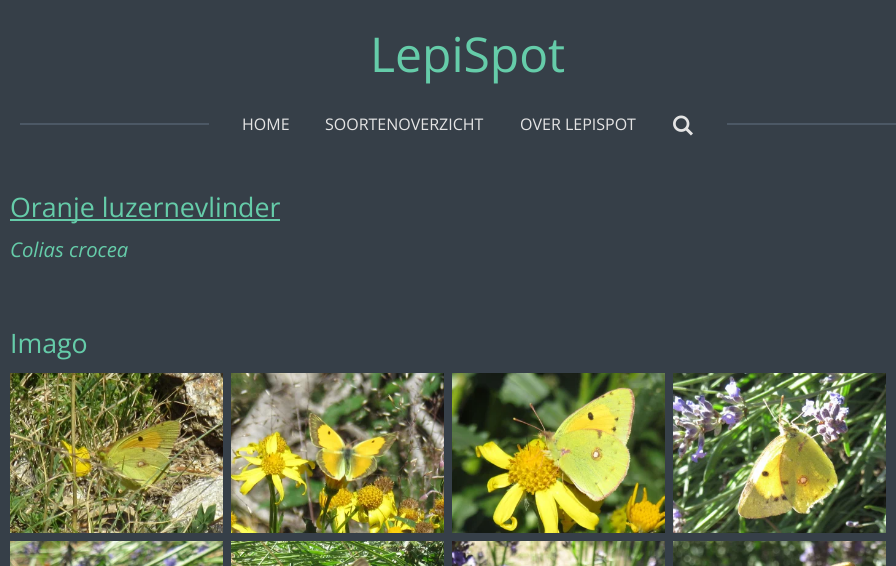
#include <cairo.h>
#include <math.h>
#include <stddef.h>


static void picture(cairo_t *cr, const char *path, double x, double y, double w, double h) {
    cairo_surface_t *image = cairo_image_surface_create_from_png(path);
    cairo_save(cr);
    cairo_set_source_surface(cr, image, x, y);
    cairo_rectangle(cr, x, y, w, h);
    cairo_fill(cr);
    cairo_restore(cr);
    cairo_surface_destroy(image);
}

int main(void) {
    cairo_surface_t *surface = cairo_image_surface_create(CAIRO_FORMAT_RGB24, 896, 566);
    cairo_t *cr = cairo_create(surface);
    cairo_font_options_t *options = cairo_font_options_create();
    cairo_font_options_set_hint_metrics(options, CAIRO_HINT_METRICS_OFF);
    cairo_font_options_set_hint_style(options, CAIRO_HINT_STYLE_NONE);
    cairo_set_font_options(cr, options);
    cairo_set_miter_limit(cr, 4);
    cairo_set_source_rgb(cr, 0.212, 0.247, 0.282);
    cairo_paint(cr);
    cairo_select_font_face(cr, "Open Sans", CAIRO_FONT_SLANT_NORMAL, CAIRO_FONT_WEIGHT_NORMAL);
    cairo_set_font_size(cr, 48);
    cairo_set_source_rgb(cr, 0.396, 0.8, 0.663);
    cairo_move_to(cr, 370, 72);
    cairo_show_text(cr, "LepiSpot");
    cairo_set_source_rgb(cr, 0.298, 0.345, 0.396);
    cairo_rectangle(cr, 20, 123, 189, 2);
    cairo_fill(cr);
    cairo_set_font_size(cr, 16);
    cairo_set_source_rgb(cr, 0.894, 0.894, 0.894);
    cairo_move_to(cr, 242, 130);
    cairo_show_text(cr, "HOME");
    cairo_move_to(cr, 325, 130);
    cairo_show_text(cr, "SOORTENOVERZICHT");
    cairo_move_to(cr, 520, 130);
    cairo_show_text(cr, "OVER LEPISPOT");
    picture(cr, "img1.png", 673, 115, 20, 21);
    cairo_set_source_rgb(cr, 0.298, 0.345, 0.396);
    cairo_rectangle(cr, 727, 123, 169, 2);
    cairo_fill(cr);
    cairo_set_source_rgb(cr, 0.396, 0.8, 0.663);
    cairo_rectangle(cr, 10, 219, 270, 2);
    cairo_fill(cr);
    cairo_set_font_size(cr, 26.75);
    cairo_move_to(cr, 10, 217);
    cairo_show_text(cr, "Oranje luzernevlinder");
    cairo_select_font_face(cr, "Open Sans", CAIRO_FONT_SLANT_ITALIC, CAIRO_FONT_WEIGHT_NORMAL);
    cairo_set_font_size(cr, 20.25);
    cairo_move_to(cr, 10, 257);
    cairo_show_text(cr, "Colias crocea");
    cairo_select_font_face(cr, "Open Sans", CAIRO_FONT_SLANT_NORMAL, CAIRO_FONT_WEIGHT_NORMAL);
    cairo_set_font_size(cr, 26.75);
    cairo_move_to(cr, 10, 353);
    cairo_show_text(cr, "Imago");
    picture(cr, "img2.png", 10, 373, 213, 160);
    picture(cr, "img3.png", 231, 373, 213, 160);
    picture(cr, "img4.png", 452, 373, 213, 160);
    picture(cr, "img5.png", 673, 373, 213, 160);
    picture(cr, "img6.png", 10, 541, 213, 25);
    picture(cr, "img7.png", 231, 541, 213, 25);
    picture(cr, "img8.png", 452, 541, 213, 25);
    picture(cr, "img9.png", 673, 541, 213, 25);
    cairo_surface_write_to_png(surface, "page.png");
    cairo_font_options_destroy(options);
    cairo_destroy(cr);
    cairo_surface_destroy(surface);
    return 0;
}
